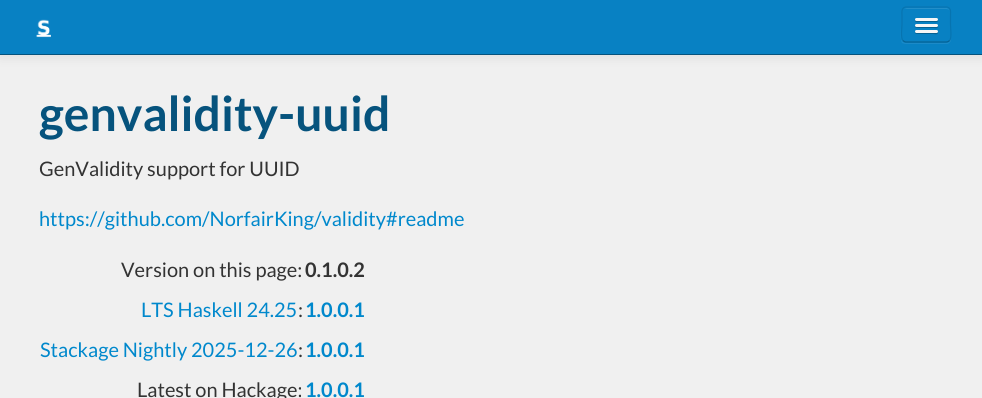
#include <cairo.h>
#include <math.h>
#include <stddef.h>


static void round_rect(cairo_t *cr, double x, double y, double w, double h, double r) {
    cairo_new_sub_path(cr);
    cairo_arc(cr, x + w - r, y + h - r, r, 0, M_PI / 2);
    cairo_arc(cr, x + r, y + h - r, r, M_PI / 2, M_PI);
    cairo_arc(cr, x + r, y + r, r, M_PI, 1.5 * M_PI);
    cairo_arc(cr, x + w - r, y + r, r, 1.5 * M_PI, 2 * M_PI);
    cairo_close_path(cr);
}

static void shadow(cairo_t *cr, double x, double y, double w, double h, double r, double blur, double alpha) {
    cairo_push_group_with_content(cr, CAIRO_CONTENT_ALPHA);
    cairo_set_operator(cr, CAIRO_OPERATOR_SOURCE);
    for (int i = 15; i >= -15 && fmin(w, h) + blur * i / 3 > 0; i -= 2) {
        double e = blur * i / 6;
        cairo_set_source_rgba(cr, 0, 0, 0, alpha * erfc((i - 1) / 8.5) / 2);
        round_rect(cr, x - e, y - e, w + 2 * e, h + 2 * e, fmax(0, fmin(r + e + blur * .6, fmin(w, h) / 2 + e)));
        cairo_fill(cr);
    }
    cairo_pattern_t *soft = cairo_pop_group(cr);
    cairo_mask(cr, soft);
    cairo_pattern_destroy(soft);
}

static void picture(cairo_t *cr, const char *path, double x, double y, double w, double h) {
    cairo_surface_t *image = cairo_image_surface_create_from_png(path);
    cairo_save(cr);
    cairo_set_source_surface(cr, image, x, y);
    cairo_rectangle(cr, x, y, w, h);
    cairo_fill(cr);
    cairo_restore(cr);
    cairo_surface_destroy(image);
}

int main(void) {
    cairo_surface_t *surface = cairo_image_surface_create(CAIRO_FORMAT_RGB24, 982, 398);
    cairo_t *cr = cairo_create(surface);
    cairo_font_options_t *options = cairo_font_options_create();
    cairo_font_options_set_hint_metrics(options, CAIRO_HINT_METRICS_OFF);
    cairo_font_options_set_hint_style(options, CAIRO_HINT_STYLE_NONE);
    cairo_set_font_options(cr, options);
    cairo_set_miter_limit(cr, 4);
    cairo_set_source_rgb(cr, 0.941, 0.941, 0.941);
    cairo_paint(cr);
    cairo_set_source_rgb(cr, 0, 0, 0);
    shadow(cr, 0, 1, 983, 55, 0, 6, 0.1);
    cairo_set_source_rgb(cr, 0.035, 0.506, 0.765);
    cairo_rectangle(cr, 0, 0, 982, 54);
    cairo_fill(cr);
    cairo_set_source_rgb(cr, 0.024, 0.325, 0.49);
    cairo_rectangle(cr, 0, 54, 982, 1);
    cairo_fill(cr);
    picture(cr, "img1.png", 36, 19, 15, 19);
    cairo_set_source_rgb(cr, 0.106, 0.541, 0.784);
    cairo_new_path(cr);
    cairo_move_to(cr, 901, 11);
    cairo_line_to(cr, 901, 26);
    cairo_curve_to(cr, 901, 30, 900, 40, 902, 43);
    cairo_line_to(cr, 905, 44);
    cairo_line_to(cr, 947, 44);
    cairo_curve_to(cr, 949, 44, 950, 42, 951, 41);
    cairo_line_to(cr, 951, 39);
    cairo_curve_to(cr, 950, 41, 948, 42, 946, 42);
    cairo_line_to(cr, 906, 42);
    cairo_curve_to(cr, 903, 42, 901, 40, 901, 38);
    cairo_close_path(cr);
    cairo_fill(cr);
    cairo_set_source_rgb(cr, 0.035, 0.506, 0.765);
    round_rect(cr, 901, 6, 50, 37, 5);
    cairo_fill(cr);
    cairo_set_source_rgb(cr, 0.133, 0.557, 0.788);
    cairo_new_path(cr);
    cairo_move_to(cr, 906, 9);
    cairo_line_to(cr, 946, 9);
    cairo_curve_to(cr, 948, 9, 950, 10, 950, 12);
    cairo_curve_to(cr, 950, 10, 948, 8, 946, 8);
    cairo_line_to(cr, 907, 8);
    cairo_curve_to(cr, 906, 8, 905, 9, 904, 9);
    cairo_close_path(cr);
    cairo_fill(cr);
    cairo_new_path(cr);
    cairo_move_to(cr, 949.5, 40.5);
    cairo_curve_to(cr, 948.5, 41.5, 947.5, 42, 946, 42);
    cairo_line_to(cr, 906, 42);
    cairo_curve_to(cr, 905, 42, 904, 41.5, 903, 40.5);
    cairo_set_source_rgb(cr, 0.027, 0.38, 0.573);
    cairo_set_line_width(cr, 1.2);
    cairo_stroke(cr);
    cairo_new_path(cr);
    cairo_move_to(cr, 903, 40.5);
    cairo_curve_to(cr, 900.5, 38, 902, 27.5, 902, 24.5);
    cairo_line_to(cr, 902, 15.5);
    cairo_curve_to(cr, 902, 12.5, 901, 8, 905.5, 7);
    cairo_line_to(cr, 947, 7);
    cairo_curve_to(cr, 951.5, 8, 950.5, 12.5, 950.5, 15.5);
    cairo_line_to(cr, 950.5, 24.5);
    cairo_curve_to(cr, 950.5, 27.5, 952, 38, 949.5, 40.5);
    cairo_set_source_rgba(cr, 0, 0, 0, 0.1);
    cairo_stroke(cr);
    cairo_set_source_rgb(cr, 0.027, 0.38, 0.573);
    cairo_new_path(cr);
    cairo_move_to(cr, 915.5, 19.5);
    cairo_line_to(cr, 915, 21);
    cairo_curve_to(cr, 915.5, 23, 919, 22, 920, 22);
    cairo_line_to(cr, 933, 22);
    cairo_curve_to(cr, 934.5, 22, 938, 23, 938, 20.5);
    cairo_line_to(cr, 937.5, 19.5);
    cairo_line_to(cr, 936.5, 20);
    cairo_curve_to(cr, 934.5, 20.5, 916, 20.5, 915.5, 19.5);
    cairo_close_path(cr);
    cairo_fill(cr);
    cairo_set_source_rgb(cr, 0.961, 0.961, 0.961);
    round_rect(cr, 915, 18, 23, 3, 1.5);
    cairo_fill(cr);
    cairo_set_source_rgb(cr, 0.027, 0.38, 0.573);
    cairo_new_path(cr);
    cairo_move_to(cr, 915, 25.5);
    cairo_curve_to(cr, 913.5, 28.5, 919.5, 28, 920, 28);
    cairo_line_to(cr, 933, 28);
    cairo_curve_to(cr, 934, 28, 937.5, 29, 938, 27);
    cairo_curve_to(cr, 938, 26.5, 938, 25.5, 937.5, 25.5);
    cairo_line_to(cr, 936.5, 26);
    cairo_line_to(cr, 916, 26);
    cairo_close_path(cr);
    cairo_fill(cr);
    cairo_set_source_rgb(cr, 0.961, 0.961, 0.961);
    round_rect(cr, 915, 24, 23, 3, 1.5);
    cairo_fill(cr);
    cairo_set_source_rgb(cr, 0.027, 0.38, 0.573);
    cairo_new_path(cr);
    cairo_move_to(cr, 915, 32);
    cairo_curve_to(cr, 914, 34.5, 919, 34, 920, 34);
    cairo_line_to(cr, 933, 34);
    cairo_curve_to(cr, 934, 34, 937.5, 35, 938, 33);
    cairo_curve_to(cr, 938, 32.5, 938, 31.5, 937.5, 31.5);
    cairo_curve_to(cr, 937.5, 32, 937, 32.5, 936, 32.5);
    cairo_line_to(cr, 916, 32.5);
    cairo_curve_to(cr, 916, 32.5, 915.5, 32, 915, 32);
    cairo_close_path(cr);
    cairo_fill(cr);
    cairo_set_source_rgb(cr, 0.961, 0.961, 0.961);
    round_rect(cr, 915, 30, 23, 3, 1.5);
    cairo_fill(cr);
    cairo_select_font_face(cr, "Lato", CAIRO_FONT_SLANT_NORMAL, CAIRO_FONT_WEIGHT_BOLD);
    cairo_set_font_size(cr, 48);
    cairo_set_source_rgb(cr, 0.024, 0.325, 0.49);
    cairo_move_to(cr, 39, 131);
    cairo_show_text(cr, "genvalidity-uuid");
    cairo_select_font_face(cr, "Lato", CAIRO_FONT_SLANT_NORMAL, CAIRO_FONT_WEIGHT_NORMAL);
    cairo_set_font_size(cr, 20);
    cairo_set_source_rgb(cr, 0.2, 0.2, 0.2);
    cairo_move_to(cr, 39, 176);
    cairo_show_text(cr, "GenValidity support for UUID");
    cairo_set_source_rgb(cr, 0, 0.533, 0.8);
    cairo_move_to(cr, 39, 226);
    cairo_show_text(cr, "https://github.com/NorfairKing/validity#readme");
    cairo_set_source_rgb(cr, 0.2, 0.2, 0.2);
    cairo_move_to(cr, 121, 277);
    cairo_show_text(cr, "Version on this page:");
    cairo_select_font_face(cr, "Lato", CAIRO_FONT_SLANT_NORMAL, CAIRO_FONT_WEIGHT_BOLD);
    cairo_move_to(cr, 305, 277);
    cairo_show_text(cr, "0.1.0.2");
    cairo_select_font_face(cr, "Lato", CAIRO_FONT_SLANT_NORMAL, CAIRO_FONT_WEIGHT_NORMAL);
    cairo_set_source_rgb(cr, 0, 0.533, 0.8);
    cairo_move_to(cr, 141, 317);
    cairo_show_text(cr, "LTS Haskell 24.25");
    cairo_set_source_rgb(cr, 0.2, 0.2, 0.2);
    cairo_move_to(cr, 298, 317);
    cairo_show_text(cr, ":");
    cairo_select_font_face(cr, "Lato", CAIRO_FONT_SLANT_NORMAL, CAIRO_FONT_WEIGHT_BOLD);
    cairo_set_source_rgb(cr, 0, 0.533, 0.8);
    cairo_move_to(cr, 305, 317);
    cairo_show_text(cr, "1.0.0.1");
    cairo_select_font_face(cr, "Lato", CAIRO_FONT_SLANT_NORMAL, CAIRO_FONT_WEIGHT_NORMAL);
    cairo_move_to(cr, 40, 357);
    cairo_show_text(cr, "Stackage Nightly 2025-12-26");
    cairo_set_source_rgb(cr, 0.2, 0.2, 0.2);
    cairo_move_to(cr, 298, 357);
    cairo_show_text(cr, ":");
    cairo_select_font_face(cr, "Lato", CAIRO_FONT_SLANT_NORMAL, CAIRO_FONT_WEIGHT_BOLD);
    cairo_set_source_rgb(cr, 0, 0.533, 0.8);
    cairo_move_to(cr, 305, 357);
    cairo_show_text(cr, "1.0.0.1");
    cairo_select_font_face(cr, "Lato", CAIRO_FONT_SLANT_NORMAL, CAIRO_FONT_WEIGHT_NORMAL);
    cairo_set_source_rgb(cr, 0.2, 0.2, 0.2);
    cairo_move_to(cr, 137, 397);
    cairo_show_text(cr, "Latest on Hackage:");
    cairo_select_font_face(cr, "Lato", CAIRO_FONT_SLANT_NORMAL, CAIRO_FONT_WEIGHT_BOLD);
    cairo_set_source_rgb(cr, 0, 0.533, 0.8);
    cairo_move_to(cr, 305, 397);
    cairo_show_text(cr, "1.0.0.1");
    cairo_surface_write_to_png(surface, "page.png");
    cairo_font_options_destroy(options);
    cairo_destroy(cr);
    cairo_surface_destroy(surface);
    return 0;
}
